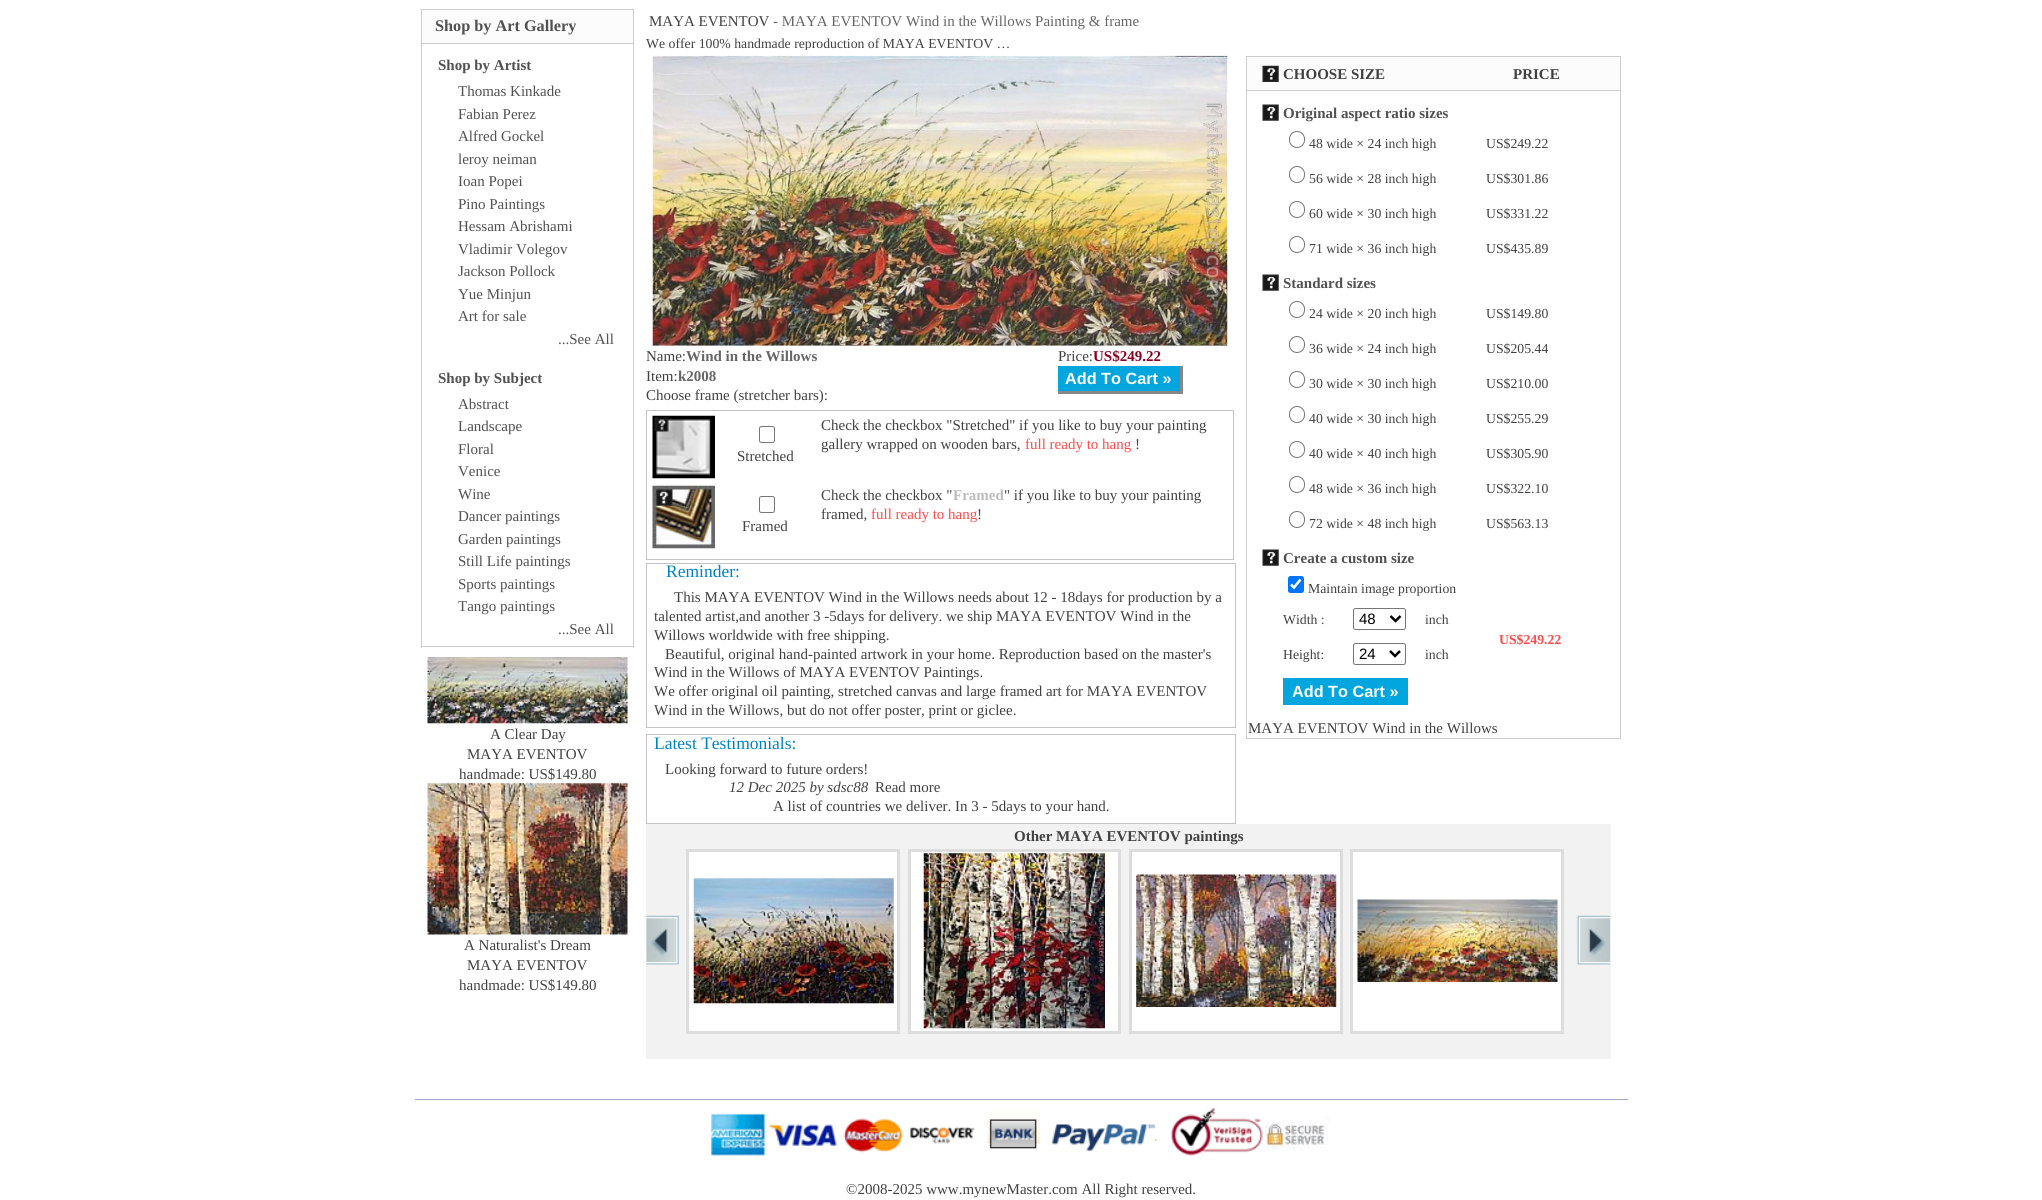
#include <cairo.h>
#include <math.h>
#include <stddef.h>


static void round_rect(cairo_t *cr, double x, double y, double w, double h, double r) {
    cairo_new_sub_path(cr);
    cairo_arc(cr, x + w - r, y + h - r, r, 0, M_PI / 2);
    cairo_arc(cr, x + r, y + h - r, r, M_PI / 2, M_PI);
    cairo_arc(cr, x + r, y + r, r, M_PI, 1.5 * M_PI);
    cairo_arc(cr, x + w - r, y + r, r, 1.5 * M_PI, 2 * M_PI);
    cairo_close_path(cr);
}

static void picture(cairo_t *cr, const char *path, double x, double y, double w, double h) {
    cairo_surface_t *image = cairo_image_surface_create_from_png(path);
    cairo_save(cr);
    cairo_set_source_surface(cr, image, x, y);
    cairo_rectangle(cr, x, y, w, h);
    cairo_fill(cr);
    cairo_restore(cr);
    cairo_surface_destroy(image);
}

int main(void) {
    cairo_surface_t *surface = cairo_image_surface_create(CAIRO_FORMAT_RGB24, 2042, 1200);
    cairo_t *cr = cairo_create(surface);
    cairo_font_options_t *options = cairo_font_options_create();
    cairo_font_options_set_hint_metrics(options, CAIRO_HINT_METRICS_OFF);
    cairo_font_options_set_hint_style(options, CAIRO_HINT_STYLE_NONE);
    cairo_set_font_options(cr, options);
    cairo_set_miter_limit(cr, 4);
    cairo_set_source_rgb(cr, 1, 1, 1);
    cairo_paint(cr);
    cairo_set_source_rgb(cr, 0.988, 0.988, 0.988);
    cairo_rectangle(cr, 421.5, 9.5, 212, 34);
    cairo_fill_preserve(cr);
    cairo_set_source_rgb(cr, 0.804, 0.804, 0.804);
    cairo_set_line_width(cr, 1);
    cairo_stroke(cr);
    cairo_select_font_face(cr, "Liberation Serif", CAIRO_FONT_SLANT_NORMAL, CAIRO_FONT_WEIGHT_BOLD);
    cairo_set_font_size(cr, 16.25);
    cairo_set_source_rgb(cr, 0.318, 0.318, 0.318);
    cairo_move_to(cr, 435, 31);
    cairo_show_text(cr, "Shop by Art Gallery");
    cairo_set_source_rgb(cr, 0.804, 0.804, 0.804);
    cairo_rectangle(cr, 633, 44, 1, 604);
    cairo_fill(cr);
    cairo_rectangle(cr, 421, 646, 213, 1);
    cairo_fill(cr);
    cairo_rectangle(cr, 421, 44, 1, 604);
    cairo_fill(cr);
    cairo_set_font_size(cr, 15);
    cairo_set_source_rgb(cr, 0.318, 0.318, 0.318);
    cairo_move_to(cr, 438, 70);
    cairo_show_text(cr, "Shop by Artist");
    cairo_save(cr);
    cairo_rectangle(cr, 458, 80, 156, 23);
    cairo_clip(cr);
    cairo_select_font_face(cr, "Liberation Serif", CAIRO_FONT_SLANT_NORMAL, CAIRO_FONT_WEIGHT_NORMAL);
    cairo_move_to(cr, 458, 96);
    cairo_show_text(cr, "Thomas Kinkade");
    cairo_restore(cr);
    cairo_select_font_face(cr, "Liberation Serif", CAIRO_FONT_SLANT_NORMAL, CAIRO_FONT_WEIGHT_NORMAL);
    cairo_move_to(cr, 458, 119);
    cairo_show_text(cr, "Fabian Perez");
    cairo_move_to(cr, 458, 141);
    cairo_show_text(cr, "Alfred Gockel");
    cairo_move_to(cr, 458, 164);
    cairo_show_text(cr, "leroy neiman");
    cairo_move_to(cr, 458, 186);
    cairo_show_text(cr, "Ioan Popei");
    cairo_move_to(cr, 458, 209);
    cairo_show_text(cr, "Pino Paintings");
    cairo_move_to(cr, 458, 231);
    cairo_show_text(cr, "Hessam Abrishami");
    cairo_move_to(cr, 458, 254);
    cairo_show_text(cr, "Vladimir Volegov");
    cairo_move_to(cr, 458, 276);
    cairo_show_text(cr, "Jackson Pollock");
    cairo_move_to(cr, 458, 299);
    cairo_show_text(cr, "Yue Minjun");
    cairo_move_to(cr, 458, 321);
    cairo_show_text(cr, "Art for sale");
    cairo_move_to(cr, 558, 344);
    cairo_show_text(cr, "...See All");
    cairo_select_font_face(cr, "Liberation Serif", CAIRO_FONT_SLANT_NORMAL, CAIRO_FONT_WEIGHT_BOLD);
    cairo_move_to(cr, 438, 383);
    cairo_show_text(cr, "Shop by Subject");
    cairo_select_font_face(cr, "Liberation Serif", CAIRO_FONT_SLANT_NORMAL, CAIRO_FONT_WEIGHT_NORMAL);
    cairo_move_to(cr, 458, 409);
    cairo_show_text(cr, "Abstract");
    cairo_move_to(cr, 458, 431);
    cairo_show_text(cr, "Landscape");
    cairo_move_to(cr, 458, 454);
    cairo_show_text(cr, "Floral");
    cairo_move_to(cr, 458, 476);
    cairo_show_text(cr, "Venice");
    cairo_move_to(cr, 458, 499);
    cairo_show_text(cr, "Wine");
    cairo_move_to(cr, 458, 521);
    cairo_show_text(cr, "Dancer paintings");
    cairo_move_to(cr, 458, 544);
    cairo_show_text(cr, "Garden paintings");
    cairo_move_to(cr, 458, 566);
    cairo_show_text(cr, "Still Life paintings");
    cairo_move_to(cr, 458, 589);
    cairo_show_text(cr, "Sports paintings");
    cairo_save(cr);
    cairo_rectangle(cr, 458, 595, 156, 23);
    cairo_clip(cr);
    cairo_move_to(cr, 458, 611);
    cairo_show_text(cr, "Tango paintings");
    cairo_restore(cr);
    cairo_move_to(cr, 558, 634);
    cairo_show_text(cr, "...See All");
    picture(cr, "img1.png", 427, 657, 201, 67);
    cairo_set_source_rgb(cr, 0.255, 0.255, 0.255);
    cairo_move_to(cr, 490, 739);
    cairo_show_text(cr, "A Clear Day");
    cairo_move_to(cr, 467, 759);
    cairo_show_text(cr, "MAYA EVENTOV");
    cairo_move_to(cr, 459, 779);
    cairo_show_text(cr, "handmade: US$149.80");
    picture(cr, "img2.png", 427, 783, 201, 152);
    cairo_move_to(cr, 464, 950);
    cairo_show_text(cr, "A Naturalist's Dream");
    cairo_move_to(cr, 467, 970);
    cairo_show_text(cr, "MAYA EVENTOV");
    cairo_move_to(cr, 459, 990);
    cairo_show_text(cr, "handmade: US$149.80");
    cairo_move_to(cr, 649, 26);
    cairo_show_text(cr, "MAYA EVENTOV");
    cairo_set_source_rgb(cr, 0.4, 0.4, 0.4);
    cairo_move_to(cr, 773, 26);
    cairo_show_text(cr, "- MAYA EVENTOV Wind in the Willows Painting & frame");
    cairo_save(cr);
    cairo_rectangle(cr, 646, 35, 368, 15);
    cairo_clip(cr);
    cairo_set_font_size(cr, 13.75);
    cairo_set_source_rgb(cr, 0.255, 0.255, 0.255);
    cairo_move_to(cr, 646, 48);
    cairo_show_text(cr, "We offer 100% handmade reproduction of MAYA EVENTOV …");
    cairo_restore(cr);
    picture(cr, "img3.png", 652, 55, 576, 291);
    cairo_set_source_rgb(cr, 0.255, 0.255, 0.255);
    cairo_move_to(cr, 646, 361);
    cairo_show_text(cr, "Name:");
    cairo_select_font_face(cr, "Liberation Serif", CAIRO_FONT_SLANT_NORMAL, CAIRO_FONT_WEIGHT_BOLD);
    cairo_set_source_rgb(cr, 0.4, 0.4, 0.4);
    cairo_move_to(cr, 686, 361);
    cairo_show_text(cr, "Wind in the Willows");
    cairo_select_font_face(cr, "Liberation Serif", CAIRO_FONT_SLANT_NORMAL, CAIRO_FONT_WEIGHT_NORMAL);
    cairo_set_source_rgb(cr, 0.255, 0.255, 0.255);
    cairo_move_to(cr, 1058, 361);
    cairo_show_text(cr, "Price:");
    cairo_select_font_face(cr, "Liberation Serif", CAIRO_FONT_SLANT_NORMAL, CAIRO_FONT_WEIGHT_BOLD);
    cairo_set_source_rgb(cr, 0.541, 0, 0.137);
    cairo_move_to(cr, 1093, 361);
    cairo_show_text(cr, "US$249.22");
    cairo_select_font_face(cr, "Liberation Serif", CAIRO_FONT_SLANT_NORMAL, CAIRO_FONT_WEIGHT_NORMAL);
    cairo_set_source_rgb(cr, 0.255, 0.255, 0.255);
    cairo_move_to(cr, 646, 381);
    cairo_show_text(cr, "Item:");
    cairo_select_font_face(cr, "Liberation Serif", CAIRO_FONT_SLANT_NORMAL, CAIRO_FONT_WEIGHT_BOLD);
    cairo_set_source_rgb(cr, 0.4, 0.4, 0.4);
    cairo_move_to(cr, 678, 381);
    cairo_show_text(cr, "k2008");
    cairo_set_source_rgb(cr, 0, 0.651, 0.867);
    cairo_rectangle(cr, 1058, 366, 122, 25);
    cairo_fill(cr);
    cairo_set_source_rgb(cr, 0.533, 0.533, 0.533);
    cairo_rectangle(cr, 1180, 366, 3, 28);
    cairo_fill(cr);
    cairo_rectangle(cr, 1058, 391, 125, 3);
    cairo_fill(cr);
    cairo_select_font_face(cr, "Liberation Sans", CAIRO_FONT_SLANT_NORMAL, CAIRO_FONT_WEIGHT_BOLD);
    cairo_set_font_size(cr, 16.25);
    cairo_set_source_rgb(cr, 1, 1, 1);
    cairo_move_to(cr, 1065, 384);
    cairo_show_text(cr, "Add To Cart »");
    cairo_select_font_face(cr, "Liberation Serif", CAIRO_FONT_SLANT_NORMAL, CAIRO_FONT_WEIGHT_NORMAL);
    cairo_set_font_size(cr, 15);
    cairo_set_source_rgb(cr, 0.255, 0.255, 0.255);
    cairo_move_to(cr, 646, 400);
    cairo_show_text(cr, "Choose frame (stretcher bars):");
    cairo_rectangle(cr, 646.5, 410.5, 587, 149);
    cairo_set_source_rgb(cr, 0.769, 0.769, 0.769);
    cairo_stroke(cr);
    picture(cr, "img4.png", 652, 415, 63, 64);
    cairo_set_source_rgb(cr, 0.255, 0.255, 0.255);
    cairo_move_to(cr, 821, 430);
    cairo_show_text(cr, "Check the checkbox \"Stretched\" if you like to buy your painting");
    cairo_move_to(cr, 821, 449);
    cairo_show_text(cr, "gallery wrapped on wooden bars,");
    cairo_set_source_rgb(cr, 1, 0.29, 0.29);
    cairo_move_to(cr, 1025, 449);
    cairo_show_text(cr, "full ready to hang");
    cairo_set_source_rgb(cr, 0.255, 0.255, 0.255);
    cairo_move_to(cr, 1135, 449);
    cairo_show_text(cr, "!");
    round_rect(cr, 759.5, 426.5, 15, 16, 2);
    cairo_set_source_rgb(cr, 0.463, 0.463, 0.463);
    cairo_stroke(cr);
    cairo_set_source_rgb(cr, 0.255, 0.255, 0.255);
    cairo_move_to(cr, 737, 461);
    cairo_show_text(cr, "Stretched");
    picture(cr, "img5.png", 652, 485, 63, 64);
    cairo_move_to(cr, 821, 500);
    cairo_show_text(cr, "Check the checkbox \"");
    cairo_select_font_face(cr, "Liberation Serif", CAIRO_FONT_SLANT_NORMAL, CAIRO_FONT_WEIGHT_BOLD);
    cairo_set_source_rgb(cr, 0.737, 0.737, 0.737);
    cairo_move_to(cr, 953, 500);
    cairo_show_text(cr, "Framed");
    cairo_select_font_face(cr, "Liberation Serif", CAIRO_FONT_SLANT_NORMAL, CAIRO_FONT_WEIGHT_NORMAL);
    cairo_set_source_rgb(cr, 0.255, 0.255, 0.255);
    cairo_move_to(cr, 1004, 500);
    cairo_show_text(cr, "\" if you like to buy your painting");
    cairo_move_to(cr, 821, 519);
    cairo_show_text(cr, "framed,");
    cairo_set_source_rgb(cr, 1, 0.29, 0.29);
    cairo_move_to(cr, 871, 519);
    cairo_show_text(cr, "full ready to hang");
    cairo_set_source_rgb(cr, 0.255, 0.255, 0.255);
    cairo_move_to(cr, 977, 519);
    cairo_show_text(cr, "!");
    round_rect(cr, 759.5, 496.5, 15, 16, 2);
    cairo_set_source_rgb(cr, 0.463, 0.463, 0.463);
    cairo_stroke(cr);
    cairo_set_source_rgb(cr, 0.255, 0.255, 0.255);
    cairo_move_to(cr, 742, 531);
    cairo_show_text(cr, "Framed");
    cairo_rectangle(cr, 646.5, 563.5, 589, 164);
    cairo_set_source_rgb(cr, 0.769, 0.769, 0.769);
    cairo_stroke(cr);
    cairo_set_font_size(cr, 17.5);
    cairo_set_source_rgb(cr, 0, 0.51, 0.776);
    cairo_move_to(cr, 666, 577);
    cairo_show_text(cr, "Reminder:");
    cairo_set_font_size(cr, 15);
    cairo_set_source_rgb(cr, 0.255, 0.255, 0.255);
    cairo_move_to(cr, 674, 602);
    cairo_show_text(cr, "This MAYA EVENTOV Wind in the Willows needs about 12 - 18days for production by a");
    cairo_move_to(cr, 654, 621);
    cairo_show_text(cr, "talented artist,and another 3 -5days for delivery. we ship MAYA EVENTOV Wind in the");
    cairo_move_to(cr, 654, 640);
    cairo_show_text(cr, "Willows worldwide with free shipping.");
    cairo_move_to(cr, 665, 659);
    cairo_show_text(cr, "Beautiful, original hand-painted artwork in your home. Reproduction based on the master's");
    cairo_move_to(cr, 654, 677);
    cairo_show_text(cr, "Wind in the Willows of MAYA EVENTOV Paintings.");
    cairo_move_to(cr, 654, 696);
    cairo_show_text(cr, "We offer original oil painting, stretched canvas and large framed art for MAYA EVENTOV");
    cairo_move_to(cr, 654, 715);
    cairo_show_text(cr, "Wind in the Willows, but do not offer poster, print or giclee.");
    cairo_rectangle(cr, 646.5, 734.5, 589, 89);
    cairo_set_source_rgb(cr, 0.769, 0.769, 0.769);
    cairo_stroke(cr);
    cairo_set_font_size(cr, 17.5);
    cairo_set_source_rgb(cr, 0, 0.51, 0.776);
    cairo_move_to(cr, 654, 749);
    cairo_show_text(cr, "Latest Testimonials:");
    cairo_set_font_size(cr, 15);
    cairo_set_source_rgb(cr, 0.255, 0.255, 0.255);
    cairo_move_to(cr, 665, 774);
    cairo_show_text(cr, "Looking forward to future orders!");
    cairo_select_font_face(cr, "Liberation Serif", CAIRO_FONT_SLANT_ITALIC, CAIRO_FONT_WEIGHT_NORMAL);
    cairo_move_to(cr, 729, 792);
    cairo_show_text(cr, "12 Dec 2025 by sdsc88");
    cairo_select_font_face(cr, "Liberation Serif", CAIRO_FONT_SLANT_NORMAL, CAIRO_FONT_WEIGHT_NORMAL);
    cairo_move_to(cr, 875, 792);
    cairo_show_text(cr, "Read more");
    cairo_move_to(cr, 773, 811);
    cairo_show_text(cr, "A list of countries we deliver. In 3 - 5days to your hand.");
    cairo_set_source_rgb(cr, 0.988, 0.988, 0.988);
    cairo_rectangle(cr, 1246.5, 56.5, 374, 34);
    cairo_fill_preserve(cr);
    cairo_set_source_rgb(cr, 0.804, 0.804, 0.804);
    cairo_stroke(cr);
    picture(cr, "img6.png", 1262, 65, 17, 17);
    cairo_select_font_face(cr, "Liberation Serif", CAIRO_FONT_SLANT_NORMAL, CAIRO_FONT_WEIGHT_BOLD);
    cairo_set_source_rgb(cr, 0.255, 0.255, 0.255);
    cairo_move_to(cr, 1283, 79);
    cairo_show_text(cr, "CHOOSE SIZE");
    cairo_move_to(cr, 1513, 79);
    cairo_show_text(cr, "PRICE");
    cairo_set_source_rgb(cr, 0.804, 0.804, 0.804);
    cairo_rectangle(cr, 1620, 91, 1, 648);
    cairo_fill(cr);
    cairo_rectangle(cr, 1246, 738, 375, 1);
    cairo_fill(cr);
    cairo_rectangle(cr, 1246, 91, 1, 648);
    cairo_fill(cr);
    picture(cr, "img7.png", 1262, 104, 17, 17);
    cairo_set_source_rgb(cr, 0.318, 0.318, 0.318);
    cairo_move_to(cr, 1283, 118);
    cairo_show_text(cr, "Original aspect ratio sizes");
    round_rect(cr, 1289.5, 131.5, 15, 16, 7.5);
    cairo_set_source_rgb(cr, 0.463, 0.463, 0.463);
    cairo_stroke(cr);
    cairo_select_font_face(cr, "Liberation Serif", CAIRO_FONT_SLANT_NORMAL, CAIRO_FONT_WEIGHT_NORMAL);
    cairo_set_font_size(cr, 13.75);
    cairo_set_source_rgb(cr, 0.255, 0.255, 0.255);
    cairo_move_to(cr, 1309, 148);
    cairo_show_text(cr, "48 wide × 24 inch high");
    cairo_move_to(cr, 1486, 148);
    cairo_show_text(cr, "US$249.22");
    round_rect(cr, 1289.5, 166.5, 15, 16, 7.5);
    cairo_set_source_rgb(cr, 0.463, 0.463, 0.463);
    cairo_stroke(cr);
    cairo_set_source_rgb(cr, 0.255, 0.255, 0.255);
    cairo_move_to(cr, 1309, 183);
    cairo_show_text(cr, "56 wide × 28 inch high");
    cairo_move_to(cr, 1486, 183);
    cairo_show_text(cr, "US$301.86");
    round_rect(cr, 1289.5, 201.5, 15, 16, 7.5);
    cairo_set_source_rgb(cr, 0.463, 0.463, 0.463);
    cairo_stroke(cr);
    cairo_set_source_rgb(cr, 0.255, 0.255, 0.255);
    cairo_move_to(cr, 1309, 218);
    cairo_show_text(cr, "60 wide × 30 inch high");
    cairo_move_to(cr, 1486, 218);
    cairo_show_text(cr, "US$331.22");
    round_rect(cr, 1289.5, 236.5, 15, 16, 7.5);
    cairo_set_source_rgb(cr, 0.463, 0.463, 0.463);
    cairo_stroke(cr);
    cairo_set_source_rgb(cr, 0.255, 0.255, 0.255);
    cairo_move_to(cr, 1309, 253);
    cairo_show_text(cr, "71 wide × 36 inch high");
    cairo_move_to(cr, 1486, 253);
    cairo_show_text(cr, "US$435.89");
    picture(cr, "img7.png", 1262, 274, 17, 17);
    cairo_select_font_face(cr, "Liberation Serif", CAIRO_FONT_SLANT_NORMAL, CAIRO_FONT_WEIGHT_BOLD);
    cairo_set_font_size(cr, 15);
    cairo_set_source_rgb(cr, 0.318, 0.318, 0.318);
    cairo_move_to(cr, 1283, 288);
    cairo_show_text(cr, "Standard sizes");
    round_rect(cr, 1289.5, 301.5, 15, 16, 7.5);
    cairo_set_source_rgb(cr, 0.463, 0.463, 0.463);
    cairo_stroke(cr);
    cairo_select_font_face(cr, "Liberation Serif", CAIRO_FONT_SLANT_NORMAL, CAIRO_FONT_WEIGHT_NORMAL);
    cairo_set_font_size(cr, 13.75);
    cairo_set_source_rgb(cr, 0.255, 0.255, 0.255);
    cairo_move_to(cr, 1309, 318);
    cairo_show_text(cr, "24 wide × 20 inch high");
    cairo_move_to(cr, 1486, 318);
    cairo_show_text(cr, "US$149.80");
    round_rect(cr, 1289.5, 336.5, 15, 16, 7.5);
    cairo_set_source_rgb(cr, 0.463, 0.463, 0.463);
    cairo_stroke(cr);
    cairo_set_source_rgb(cr, 0.255, 0.255, 0.255);
    cairo_move_to(cr, 1309, 353);
    cairo_show_text(cr, "36 wide × 24 inch high");
    cairo_move_to(cr, 1486, 353);
    cairo_show_text(cr, "US$205.44");
    round_rect(cr, 1289.5, 371.5, 15, 16, 7.5);
    cairo_set_source_rgb(cr, 0.463, 0.463, 0.463);
    cairo_stroke(cr);
    cairo_set_source_rgb(cr, 0.255, 0.255, 0.255);
    cairo_move_to(cr, 1309, 388);
    cairo_show_text(cr, "30 wide × 30 inch high");
    cairo_move_to(cr, 1486, 388);
    cairo_show_text(cr, "US$210.00");
    round_rect(cr, 1289.5, 406.5, 15, 16, 7.5);
    cairo_set_source_rgb(cr, 0.463, 0.463, 0.463);
    cairo_stroke(cr);
    cairo_set_source_rgb(cr, 0.255, 0.255, 0.255);
    cairo_move_to(cr, 1309, 423);
    cairo_show_text(cr, "40 wide × 30 inch high");
    cairo_move_to(cr, 1486, 423);
    cairo_show_text(cr, "US$255.29");
    round_rect(cr, 1289.5, 441.5, 15, 16, 7.5);
    cairo_set_source_rgb(cr, 0.463, 0.463, 0.463);
    cairo_stroke(cr);
    cairo_set_source_rgb(cr, 0.255, 0.255, 0.255);
    cairo_move_to(cr, 1309, 458);
    cairo_show_text(cr, "40 wide × 40 inch high");
    cairo_move_to(cr, 1486, 458);
    cairo_show_text(cr, "US$305.90");
    round_rect(cr, 1289.5, 476.5, 15, 16, 7.5);
    cairo_set_source_rgb(cr, 0.463, 0.463, 0.463);
    cairo_stroke(cr);
    cairo_set_source_rgb(cr, 0.255, 0.255, 0.255);
    cairo_move_to(cr, 1309, 493);
    cairo_show_text(cr, "48 wide × 36 inch high");
    cairo_move_to(cr, 1486, 493);
    cairo_show_text(cr, "US$322.10");
    round_rect(cr, 1289.5, 511.5, 15, 16, 7.5);
    cairo_set_source_rgb(cr, 0.463, 0.463, 0.463);
    cairo_stroke(cr);
    cairo_set_source_rgb(cr, 0.255, 0.255, 0.255);
    cairo_move_to(cr, 1309, 528);
    cairo_show_text(cr, "72 wide × 48 inch high");
    cairo_move_to(cr, 1486, 528);
    cairo_show_text(cr, "US$563.13");
    picture(cr, "img7.png", 1262, 549, 17, 17);
    cairo_select_font_face(cr, "Liberation Serif", CAIRO_FONT_SLANT_NORMAL, CAIRO_FONT_WEIGHT_BOLD);
    cairo_set_font_size(cr, 15);
    cairo_set_source_rgb(cr, 0.318, 0.318, 0.318);
    cairo_move_to(cr, 1283, 563);
    cairo_show_text(cr, "Create a custom size");
    cairo_set_source_rgb(cr, 0, 0.459, 1);
    round_rect(cr, 1288, 576, 16, 17, 2.5);
    cairo_fill(cr);
    cairo_new_path(cr);
    cairo_move_to(cr, 1291, 584.5);
    cairo_line_to(cr, 1294, 587.5);
    cairo_line_to(cr, 1300.5, 579.5);
    cairo_set_source_rgb(cr, 1, 1, 1);
    cairo_set_line_width(cr, 2.6);
    cairo_stroke(cr);
    cairo_select_font_face(cr, "Liberation Serif", CAIRO_FONT_SLANT_NORMAL, CAIRO_FONT_WEIGHT_NORMAL);
    cairo_set_font_size(cr, 13.75);
    cairo_set_source_rgb(cr, 0.255, 0.255, 0.255);
    cairo_move_to(cr, 1308, 593);
    cairo_show_text(cr, "Maintain image proportion");
    cairo_move_to(cr, 1283, 624);
    cairo_show_text(cr, "Width :");
    round_rect(cr, 1353.5, 608.5, 52, 21, 2);
    cairo_set_source_rgb(cr, 0.463, 0.463, 0.463);
    cairo_set_line_width(cr, 1);
    cairo_stroke(cr);
    cairo_new_path(cr);
    cairo_move_to(cr, 1390.5, 616);
    cairo_line_to(cr, 1395.5, 621);
    cairo_line_to(cr, 1400.5, 616);
    cairo_set_source_rgb(cr, 0, 0, 0);
    cairo_set_line_width(cr, 2.5);
    cairo_stroke(cr);
    cairo_select_font_face(cr, "Liberation Sans", CAIRO_FONT_SLANT_NORMAL, CAIRO_FONT_WEIGHT_NORMAL);
    cairo_set_font_size(cr, 15);
    cairo_move_to(cr, 1359, 624);
    cairo_show_text(cr, "48");
    cairo_select_font_face(cr, "Liberation Serif", CAIRO_FONT_SLANT_NORMAL, CAIRO_FONT_WEIGHT_NORMAL);
    cairo_set_font_size(cr, 13.75);
    cairo_set_source_rgb(cr, 0.255, 0.255, 0.255);
    cairo_move_to(cr, 1425, 624);
    cairo_show_text(cr, "inch");
    cairo_select_font_face(cr, "Liberation Serif", CAIRO_FONT_SLANT_NORMAL, CAIRO_FONT_WEIGHT_BOLD);
    cairo_set_source_rgb(cr, 1, 0.29, 0.29);
    cairo_move_to(cr, 1499, 644);
    cairo_show_text(cr, "US$249.22");
    cairo_select_font_face(cr, "Liberation Serif", CAIRO_FONT_SLANT_NORMAL, CAIRO_FONT_WEIGHT_NORMAL);
    cairo_set_source_rgb(cr, 0.255, 0.255, 0.255);
    cairo_move_to(cr, 1283, 659);
    cairo_show_text(cr, "Height:");
    round_rect(cr, 1353.5, 643.5, 52, 21, 2);
    cairo_set_source_rgb(cr, 0.463, 0.463, 0.463);
    cairo_set_line_width(cr, 1);
    cairo_stroke(cr);
    cairo_new_path(cr);
    cairo_move_to(cr, 1390, 651);
    cairo_line_to(cr, 1395, 656);
    cairo_line_to(cr, 1400, 651);
    cairo_set_source_rgb(cr, 0, 0, 0);
    cairo_set_line_width(cr, 2.5);
    cairo_stroke(cr);
    cairo_select_font_face(cr, "Liberation Sans", CAIRO_FONT_SLANT_NORMAL, CAIRO_FONT_WEIGHT_NORMAL);
    cairo_set_font_size(cr, 15);
    cairo_move_to(cr, 1359, 659);
    cairo_show_text(cr, "24");
    cairo_select_font_face(cr, "Liberation Serif", CAIRO_FONT_SLANT_NORMAL, CAIRO_FONT_WEIGHT_NORMAL);
    cairo_set_font_size(cr, 13.75);
    cairo_set_source_rgb(cr, 0.255, 0.255, 0.255);
    cairo_move_to(cr, 1425, 659);
    cairo_show_text(cr, "inch");
    cairo_set_source_rgb(cr, 0, 0.651, 0.867);
    cairo_rectangle(cr, 1283, 678, 125, 27);
    cairo_fill(cr);
    cairo_select_font_face(cr, "Liberation Sans", CAIRO_FONT_SLANT_NORMAL, CAIRO_FONT_WEIGHT_BOLD);
    cairo_set_font_size(cr, 16.25);
    cairo_set_source_rgb(cr, 1, 1, 1);
    cairo_move_to(cr, 1292, 697);
    cairo_show_text(cr, "Add To Cart »");
    cairo_select_font_face(cr, "Liberation Serif", CAIRO_FONT_SLANT_NORMAL, CAIRO_FONT_WEIGHT_NORMAL);
    cairo_set_font_size(cr, 15);
    cairo_set_source_rgb(cr, 0.255, 0.255, 0.255);
    cairo_move_to(cr, 1248, 733);
    cairo_show_text(cr, "MAYA EVENTOV Wind in the Willows");
    cairo_set_source_rgb(cr, 0.949, 0.949, 0.949);
    cairo_rectangle(cr, 646, 824, 965, 235);
    cairo_fill(cr);
    cairo_select_font_face(cr, "Liberation Serif", CAIRO_FONT_SLANT_NORMAL, CAIRO_FONT_WEIGHT_BOLD);
    cairo_set_source_rgb(cr, 0.255, 0.255, 0.255);
    cairo_move_to(cr, 1014, 841);
    cairo_show_text(cr, "Other MAYA EVENTOV paintings");
    picture(cr, "img8.png", 646, 915, 33, 50);
    cairo_set_source_rgb(cr, 1, 1, 1);
    cairo_rectangle(cr, 687.5, 850.5, 211, 182);
    cairo_fill_preserve(cr);
    cairo_set_source_rgb(cr, 0.867, 0.867, 0.867);
    cairo_set_line_width(cr, 3);
    cairo_stroke(cr);
    picture(cr, "img9.png", 693, 878, 201, 126);
    cairo_set_source_rgb(cr, 1, 1, 1);
    cairo_rectangle(cr, 909.5, 850.5, 210, 182);
    cairo_fill_preserve(cr);
    cairo_set_source_rgb(cr, 0.867, 0.867, 0.867);
    cairo_stroke(cr);
    picture(cr, "img10.png", 923, 853, 182, 176);
    cairo_set_source_rgb(cr, 1, 1, 1);
    cairo_rectangle(cr, 1130.5, 850.5, 211, 182);
    cairo_fill_preserve(cr);
    cairo_set_source_rgb(cr, 0.867, 0.867, 0.867);
    cairo_stroke(cr);
    picture(cr, "img11.png", 1136, 874, 201, 133);
    cairo_set_source_rgb(cr, 1, 1, 1);
    cairo_rectangle(cr, 1351.5, 850.5, 211, 182);
    cairo_fill_preserve(cr);
    cairo_set_source_rgb(cr, 0.867, 0.867, 0.867);
    cairo_stroke(cr);
    picture(cr, "img12.png", 1357, 899, 201, 83);
    picture(cr, "img13.png", 1577, 915, 33, 50);
    cairo_set_source_rgb(cr, 0.612, 0.651, 0.776);
    cairo_rectangle(cr, 415, 1099, 1213, 1);
    cairo_fill(cr);
    picture(cr, "img14.png", 711, 1107, 619, 49);
    cairo_select_font_face(cr, "Liberation Serif", CAIRO_FONT_SLANT_NORMAL, CAIRO_FONT_WEIGHT_NORMAL);
    cairo_set_source_rgb(cr, 0.255, 0.255, 0.255);
    cairo_move_to(cr, 846, 1194);
    cairo_show_text(cr, "©2008-2025 www.mynewMaster.com All Right reserved.");
    cairo_surface_write_to_png(surface, "page.png");
    cairo_font_options_destroy(options);
    cairo_destroy(cr);
    cairo_surface_destroy(surface);
    return 0;
}
